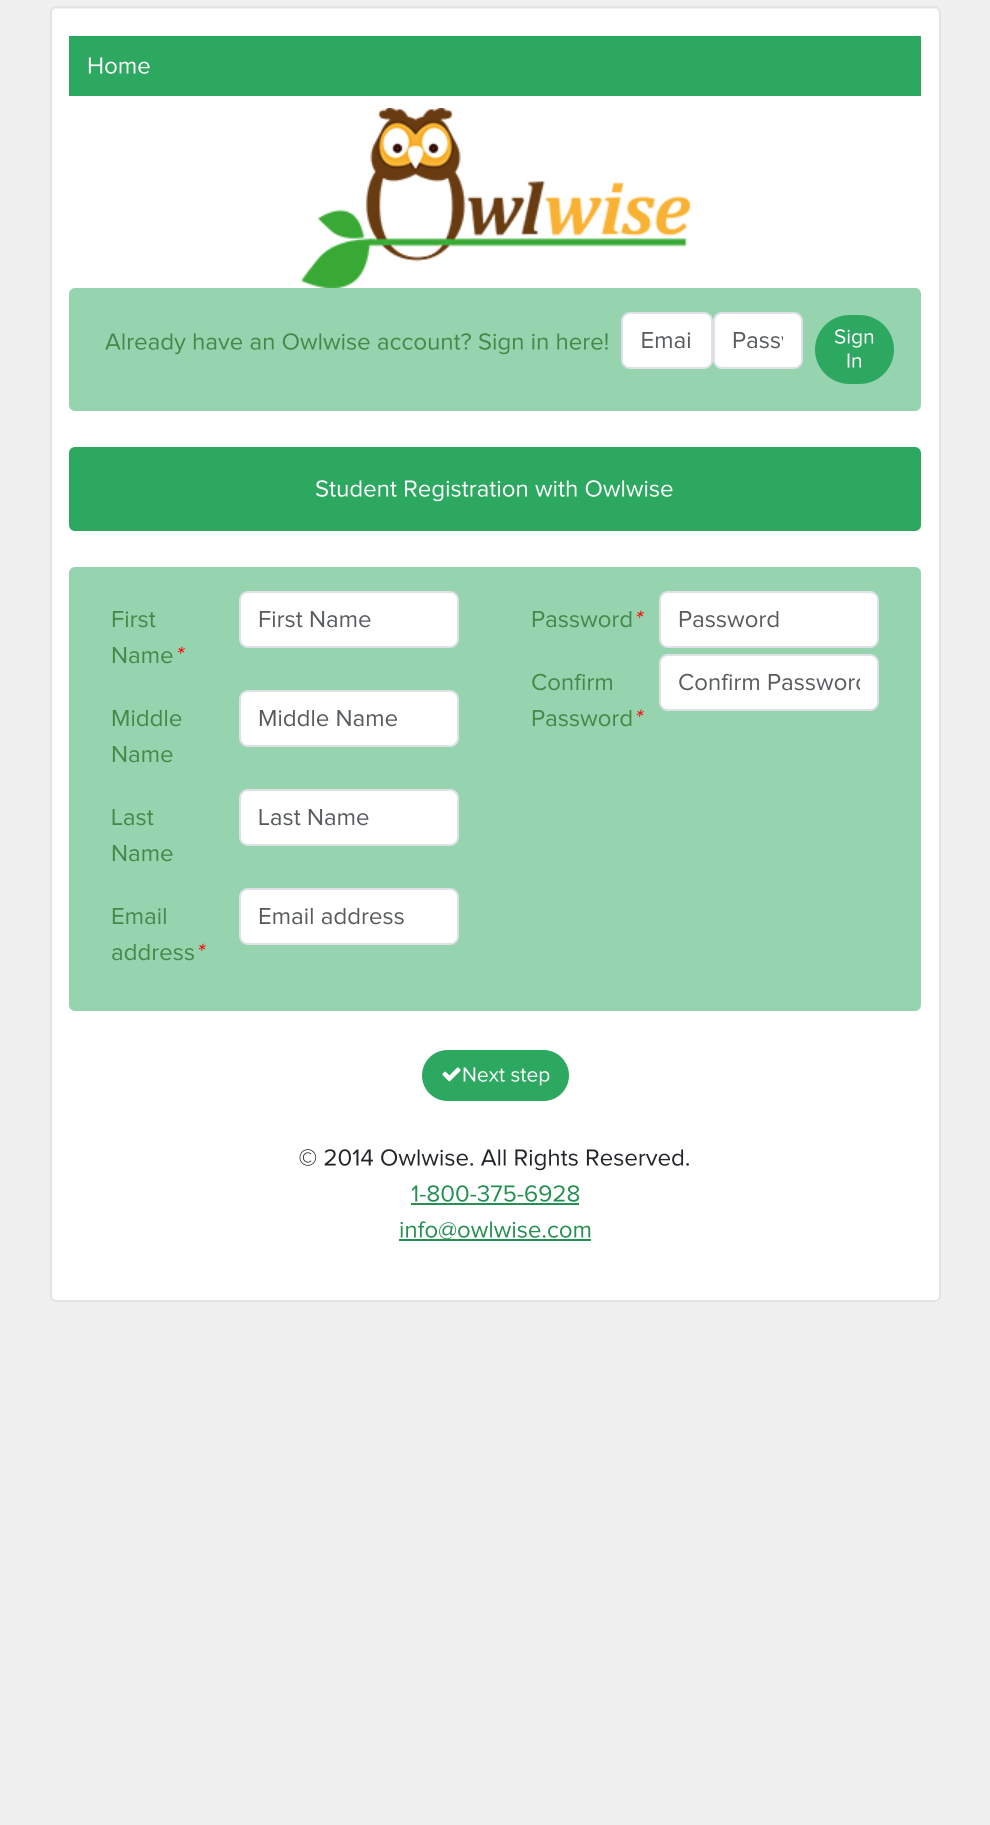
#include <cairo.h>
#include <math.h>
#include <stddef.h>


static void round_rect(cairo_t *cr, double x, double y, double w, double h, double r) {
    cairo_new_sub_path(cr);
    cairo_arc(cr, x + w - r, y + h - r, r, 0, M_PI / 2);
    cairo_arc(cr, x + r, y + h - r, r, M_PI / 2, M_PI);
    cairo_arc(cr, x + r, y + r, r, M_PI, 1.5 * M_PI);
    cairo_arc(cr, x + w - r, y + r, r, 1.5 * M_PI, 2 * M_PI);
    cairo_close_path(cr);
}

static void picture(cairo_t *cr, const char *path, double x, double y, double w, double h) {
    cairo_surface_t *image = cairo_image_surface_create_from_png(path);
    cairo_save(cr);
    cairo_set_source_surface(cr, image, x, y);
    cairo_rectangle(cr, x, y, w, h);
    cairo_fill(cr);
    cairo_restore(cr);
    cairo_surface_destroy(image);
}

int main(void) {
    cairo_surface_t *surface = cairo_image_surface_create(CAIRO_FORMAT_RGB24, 990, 1825);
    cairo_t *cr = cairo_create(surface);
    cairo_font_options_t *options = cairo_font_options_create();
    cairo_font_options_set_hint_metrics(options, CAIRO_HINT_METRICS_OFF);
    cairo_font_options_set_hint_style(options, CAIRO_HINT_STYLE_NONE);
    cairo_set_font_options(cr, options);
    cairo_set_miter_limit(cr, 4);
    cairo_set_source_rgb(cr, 0.941, 0.941, 0.941);
    cairo_paint(cr);
    cairo_set_source_rgb(cr, 1, 1, 1);
    round_rect(cr, 50, 6, 891, 1296, 6);
    cairo_fill(cr);
    cairo_set_source_rgb(cr, 0.949, 0.949, 0.949);
    cairo_new_path(cr);
    cairo_move_to(cr, 56, 9);
    cairo_line_to(cr, 934, 9);
    cairo_curve_to(cr, 937, 9, 939, 11, 939, 14);
    cairo_line_to(cr, 939, 13);
    cairo_curve_to(cr, 939, 10, 937, 8, 934, 8);
    cairo_line_to(cr, 56, 8);
    cairo_curve_to(cr, 53, 8, 51, 10, 51, 13);
    cairo_line_to(cr, 51, 14);
    cairo_curve_to(cr, 51, 11, 53, 9, 56, 9);
    cairo_close_path(cr);
    cairo_fill(cr);
    round_rect(cr, 51, 7, 889, 1294, 5);
    cairo_set_source_rgb(cr, 0.89, 0.89, 0.89);
    cairo_stroke(cr);
    cairo_set_source_rgb(cr, 0.176, 0.659, 0.376);
    cairo_rectangle(cr, 69, 36, 852, 60);
    cairo_fill(cr);
    picture(cr, "img1.png", 88, 57, 62, 17);
    picture(cr, "img2.png", 301, 108, 389, 180);
    cairo_set_source_rgb(cr, 0.588, 0.827, 0.686);
    round_rect(cr, 69, 288, 852, 123, 6);
    cairo_fill(cr);
    picture(cr, "img3.png", 105, 333, 503, 22);
    cairo_set_source_rgb(cr, 1, 1, 1);
    round_rect(cr, 622, 313, 90, 55, 8);
    cairo_fill_preserve(cr);
    cairo_set_source_rgb(cr, 0.871, 0.886, 0.902);
    cairo_stroke(cr);
    picture(cr, "img4.png", 642, 332, 49, 17);
    cairo_set_source_rgb(cr, 1, 1, 1);
    round_rect(cr, 714, 313, 88, 55, 8);
    cairo_fill_preserve(cr);
    cairo_set_source_rgb(cr, 0.871, 0.886, 0.902);
    cairo_stroke(cr);
    picture(cr, "img5.png", 733, 332, 50, 17);
    cairo_set_source_rgb(cr, 0.176, 0.659, 0.376);
    round_rect(cr, 815, 315, 79, 69, 34.5);
    cairo_fill(cr);
    picture(cr, "img6.png", 834, 329, 40, 19);
    picture(cr, "img7.png", 847, 353, 14, 15);
    round_rect(cr, 69, 447, 852, 84, 6);
    cairo_fill(cr);
    picture(cr, "img8.png", 316, 480, 357, 22);
    cairo_set_source_rgb(cr, 0.588, 0.827, 0.686);
    round_rect(cr, 69, 567, 852, 444, 6);
    cairo_fill(cr);
    picture(cr, "img9.png", 112, 611, 44, 17);
    picture(cr, "img10.png", 112, 647, 61, 17);
    picture(cr, "img11.png", 177, 646, 8, 8);
    cairo_set_source_rgb(cr, 1, 1, 1);
    round_rect(cr, 240, 592, 218, 55, 8);
    cairo_fill_preserve(cr);
    cairo_set_source_rgb(cr, 0.871, 0.886, 0.902);
    cairo_stroke(cr);
    picture(cr, "img12.png", 259, 611, 112, 17);
    picture(cr, "img13.png", 112, 710, 70, 17);
    picture(cr, "img10.png", 112, 746, 61, 17);
    cairo_set_source_rgb(cr, 1, 1, 1);
    round_rect(cr, 240, 691, 218, 55, 8);
    cairo_fill_preserve(cr);
    cairo_set_source_rgb(cr, 0.871, 0.886, 0.902);
    cairo_stroke(cr);
    picture(cr, "img14.png", 259, 710, 138, 17);
    picture(cr, "img15.png", 112, 809, 42, 17);
    picture(cr, "img10.png", 112, 845, 61, 17);
    cairo_set_source_rgb(cr, 1, 1, 1);
    round_rect(cr, 240, 790, 218, 55, 8);
    cairo_fill_preserve(cr);
    cairo_set_source_rgb(cr, 0.871, 0.886, 0.902);
    cairo_stroke(cr);
    picture(cr, "img16.png", 259, 809, 110, 17);
    picture(cr, "img17.png", 112, 908, 54, 17);
    picture(cr, "img18.png", 112, 944, 82, 17);
    picture(cr, "img11.png", 198, 943, 8, 8);
    cairo_set_source_rgb(cr, 1, 1, 1);
    round_rect(cr, 240, 889, 218, 55, 8);
    cairo_fill_preserve(cr);
    cairo_set_source_rgb(cr, 0.871, 0.886, 0.902);
    cairo_stroke(cr);
    picture(cr, "img19.png", 259, 908, 145, 17);
    picture(cr, "img20.png", 532, 611, 100, 17);
    picture(cr, "img11.png", 636, 610, 8, 8);
    cairo_set_source_rgb(cr, 1, 1, 1);
    round_rect(cr, 660, 592, 218, 55, 8);
    cairo_fill_preserve(cr);
    cairo_set_source_rgb(cr, 0.871, 0.886, 0.902);
    cairo_stroke(cr);
    picture(cr, "img21.png", 679, 611, 100, 17);
    picture(cr, "img22.png", 532, 673, 80, 18);
    picture(cr, "img20.png", 532, 710, 100, 17);
    picture(cr, "img11.png", 636, 709, 8, 8);
    cairo_set_source_rgb(cr, 1, 1, 1);
    round_rect(cr, 660, 655, 218, 55, 8);
    cairo_fill_preserve(cr);
    cairo_set_source_rgb(cr, 0.871, 0.886, 0.902);
    cairo_stroke(cr);
    picture(cr, "img23.png", 679, 673, 181, 18);
    cairo_set_source_rgb(cr, 0.176, 0.659, 0.376);
    round_rect(cr, 422, 1050, 147, 51, 25.5);
    cairo_fill(cr);
    picture(cr, "img24.png", 442, 1067, 19, 15);
    picture(cr, "img25.png", 463, 1067, 87, 19);
    picture(cr, "img26.png", 299, 1149, 390, 22);
    picture(cr, "img27.png", 411, 1185, 169, 17);
    cairo_set_source_rgb(cr, 0.149, 0.561, 0.322);
    cairo_rectangle(cr, 411, 1203, 168, 2);
    cairo_fill(cr);
    picture(cr, "img28.png", 400, 1221, 191, 18);
    cairo_rectangle(cr, 399, 1239, 192, 2);
    cairo_fill(cr);
    cairo_surface_write_to_png(surface, "page.png");
    cairo_font_options_destroy(options);
    cairo_destroy(cr);
    cairo_surface_destroy(surface);
    return 0;
}
